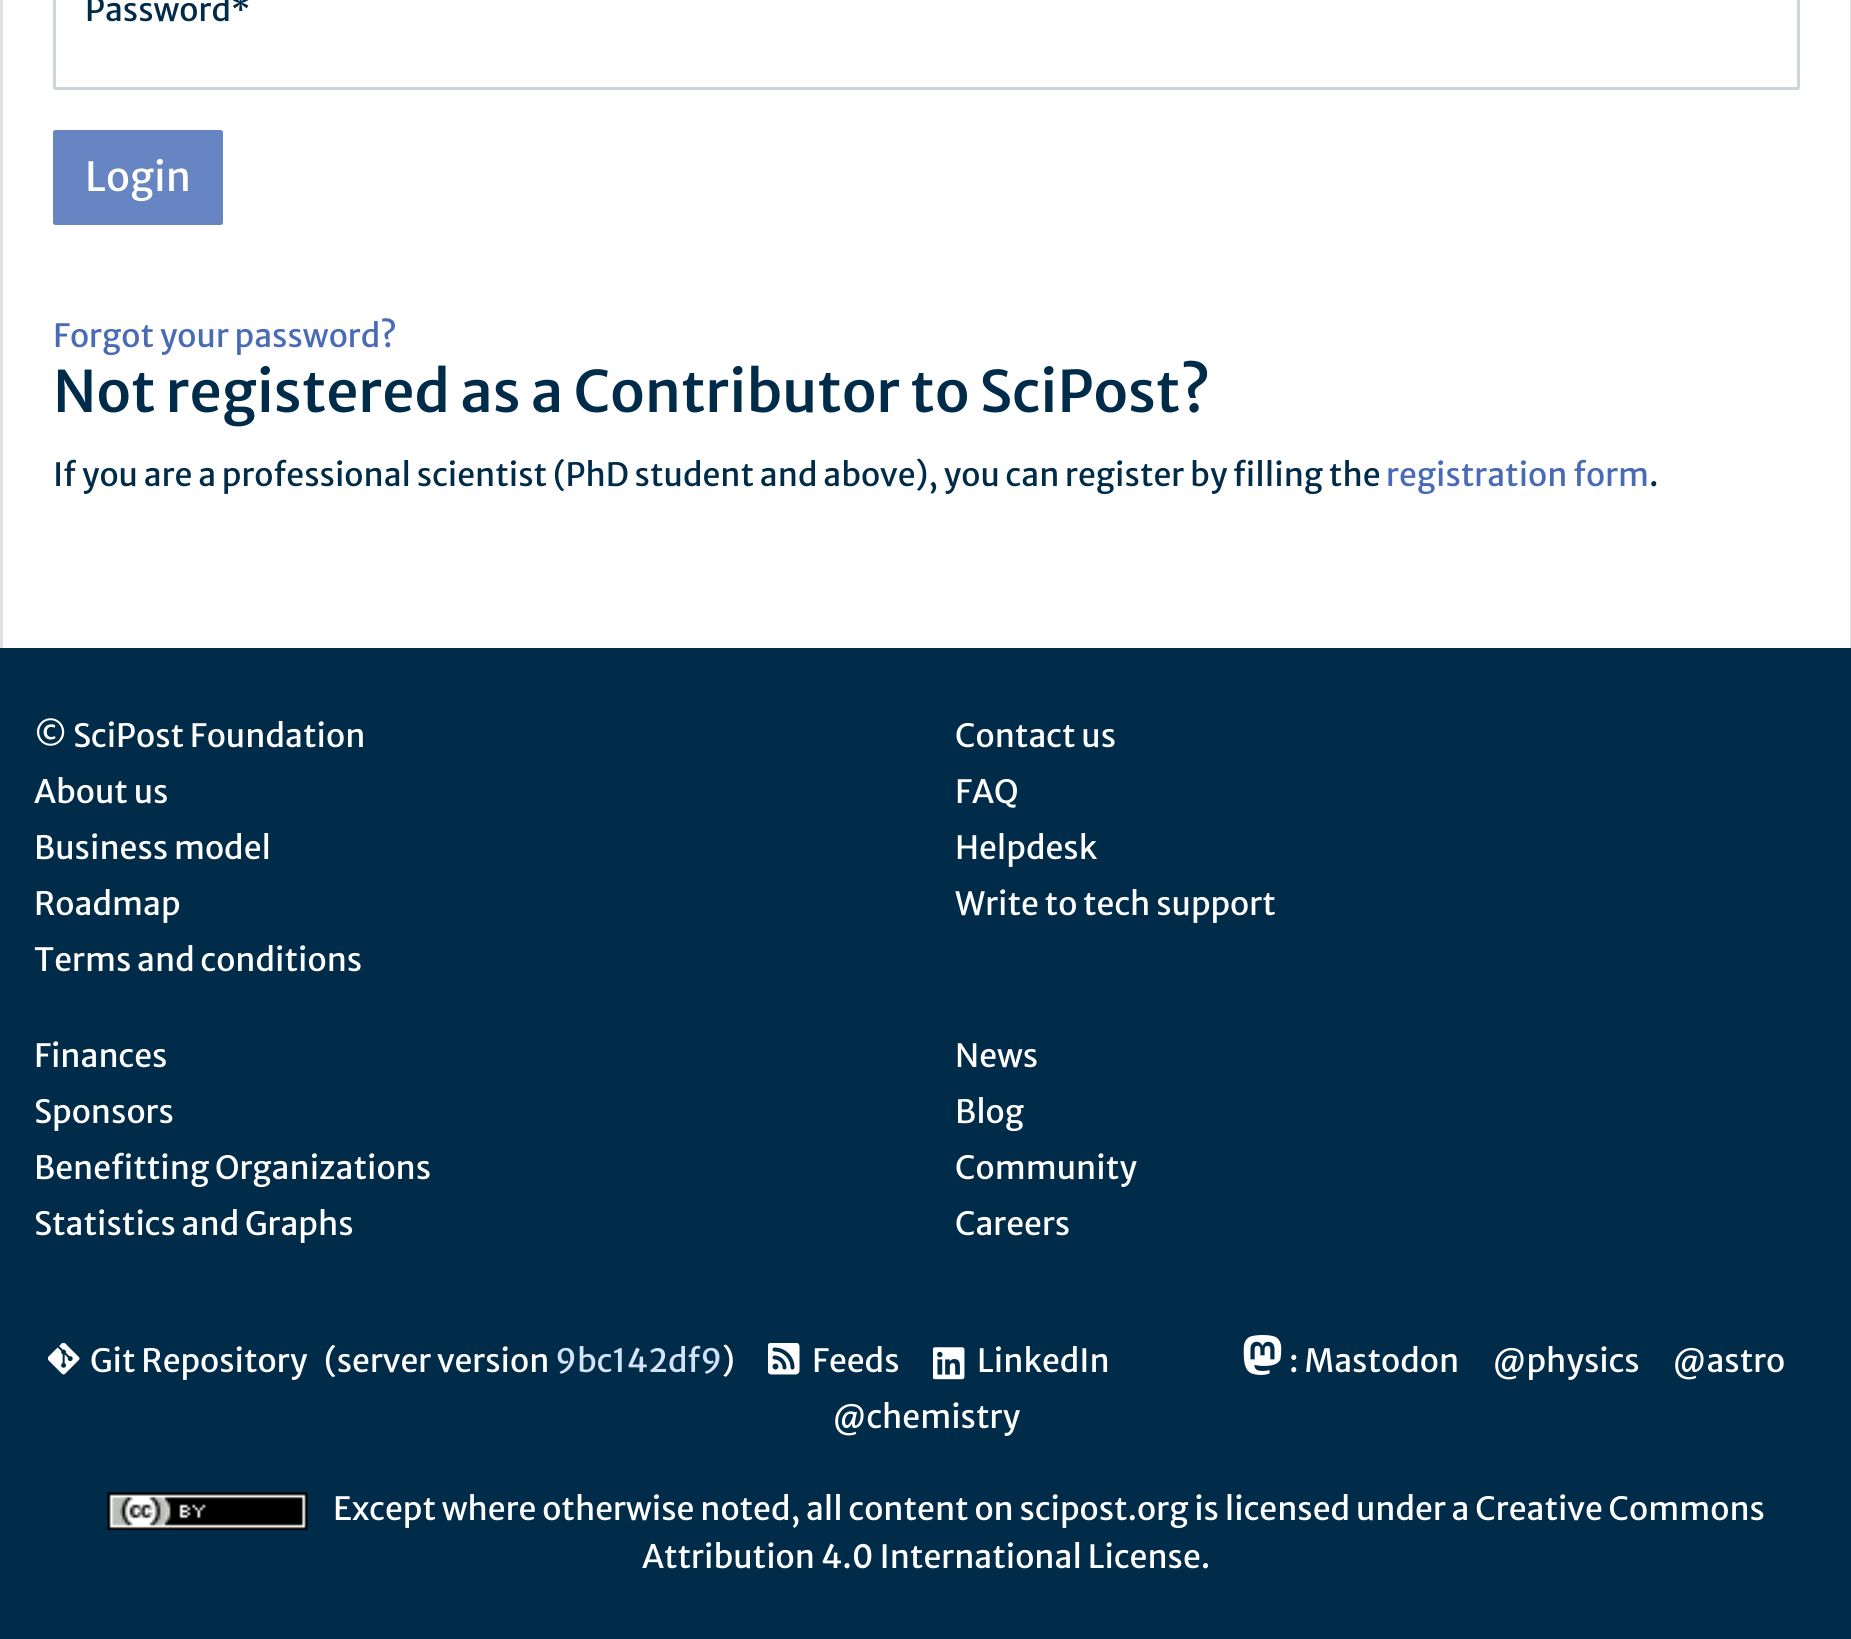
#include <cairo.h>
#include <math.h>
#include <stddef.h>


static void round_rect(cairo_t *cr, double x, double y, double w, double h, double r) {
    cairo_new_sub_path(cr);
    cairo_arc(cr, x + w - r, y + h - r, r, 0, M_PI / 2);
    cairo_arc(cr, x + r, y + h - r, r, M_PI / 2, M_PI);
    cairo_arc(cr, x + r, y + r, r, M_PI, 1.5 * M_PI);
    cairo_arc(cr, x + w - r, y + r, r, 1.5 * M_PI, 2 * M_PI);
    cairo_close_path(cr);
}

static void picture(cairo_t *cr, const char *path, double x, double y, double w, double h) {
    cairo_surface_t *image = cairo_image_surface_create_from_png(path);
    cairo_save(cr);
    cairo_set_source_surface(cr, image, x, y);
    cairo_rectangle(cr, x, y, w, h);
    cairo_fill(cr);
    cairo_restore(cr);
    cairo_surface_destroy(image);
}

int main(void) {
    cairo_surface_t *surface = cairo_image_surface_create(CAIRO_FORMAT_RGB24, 1851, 1639);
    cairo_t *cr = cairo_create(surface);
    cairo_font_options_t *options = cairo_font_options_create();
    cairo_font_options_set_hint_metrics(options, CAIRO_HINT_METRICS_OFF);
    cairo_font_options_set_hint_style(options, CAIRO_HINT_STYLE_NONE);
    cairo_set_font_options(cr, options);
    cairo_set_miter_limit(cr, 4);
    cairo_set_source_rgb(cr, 1, 1, 1);
    cairo_paint(cr);
    cairo_set_source_rgb(cr, 0.878, 0.878, 0.878);
    cairo_rectangle(cr, 1850, 0, 1, 648);
    cairo_fill(cr);
    cairo_rectangle(cr, 0, 0, 3, 648);
    cairo_fill(cr);
    round_rect(cr, 54.5, -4.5, 1744, 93, 1);
    cairo_set_source_rgb(cr, 0.808, 0.831, 0.855);
    cairo_set_line_width(cr, 3);
    cairo_stroke(cr);
    cairo_select_font_face(cr, "Merriweather Sans", CAIRO_FONT_SLANT_NORMAL, CAIRO_FONT_WEIGHT_NORMAL);
    cairo_set_font_size(cr, 32);
    cairo_set_source_rgb(cr, 0, 0.169, 0.286);
    cairo_move_to(cr, 85, 21);
    cairo_show_text(cr, "Password*");
    cairo_set_source_rgb(cr, 0.408, 0.522, 0.765);
    round_rect(cr, 54.5, 131.5, 167, 92, 1);
    cairo_fill_preserve(cr);
    cairo_stroke(cr);
    cairo_set_font_size(cr, 40);
    cairo_set_source_rgb(cr, 1, 1, 1);
    cairo_move_to(cr, 85, 191);
    cairo_show_text(cr, "Login");
    cairo_set_font_size(cr, 32);
    cairo_set_source_rgb(cr, 0.286, 0.42, 0.714);
    cairo_move_to(cr, 53, 347);
    cairo_show_text(cr, "Forgot your password?");
    cairo_select_font_face(cr, "Merriweather Sans Medium", CAIRO_FONT_SLANT_NORMAL, CAIRO_FONT_WEIGHT_NORMAL);
    cairo_set_font_size(cr, 57.1);
    cairo_set_source_rgb(cr, 0, 0.169, 0.286);
    cairo_move_to(cr, 53, 412);
    cairo_show_text(cr, "Not registered as a Contributor to SciPost?");
    cairo_select_font_face(cr, "Merriweather Sans", CAIRO_FONT_SLANT_NORMAL, CAIRO_FONT_WEIGHT_NORMAL);
    cairo_set_font_size(cr, 32);
    cairo_move_to(cr, 53, 486);
    cairo_show_text(cr, "If you are a professional scientist (PhD student and above), you can register by filling the");
    cairo_set_source_rgb(cr, 0.286, 0.42, 0.714);
    cairo_move_to(cr, 1386, 486);
    cairo_show_text(cr, "registration form");
    cairo_set_source_rgb(cr, 0, 0.169, 0.286);
    cairo_move_to(cr, 1649, 486);
    cairo_show_text(cr, ".");
    cairo_rectangle(cr, 0, 648, 1851, 991);
    cairo_fill(cr);
    cairo_set_source_rgb(cr, 1, 1, 1);
    cairo_move_to(cr, 34, 747);
    cairo_show_text(cr, "© SciPost Foundation");
    cairo_move_to(cr, 34, 803);
    cairo_show_text(cr, "About us");
    cairo_move_to(cr, 34, 859);
    cairo_show_text(cr, "Business model");
    cairo_move_to(cr, 34, 915);
    cairo_show_text(cr, "Roadmap");
    cairo_move_to(cr, 34, 971);
    cairo_show_text(cr, "Terms and conditions");
    cairo_move_to(cr, 955, 747);
    cairo_show_text(cr, "Contact us");
    cairo_move_to(cr, 955, 803);
    cairo_show_text(cr, "FAQ");
    cairo_move_to(cr, 955, 859);
    cairo_show_text(cr, "Helpdesk");
    cairo_move_to(cr, 955, 915);
    cairo_show_text(cr, "Write to tech support");
    cairo_move_to(cr, 34, 1067);
    cairo_show_text(cr, "Finances");
    cairo_move_to(cr, 34, 1123);
    cairo_show_text(cr, "Sponsors");
    cairo_move_to(cr, 34, 1179);
    cairo_show_text(cr, "Benefitting Organizations");
    cairo_move_to(cr, 34, 1235);
    cairo_show_text(cr, "Statistics and Graphs");
    cairo_move_to(cr, 955, 1067);
    cairo_show_text(cr, "News");
    cairo_move_to(cr, 955, 1123);
    cairo_show_text(cr, "Blog");
    cairo_move_to(cr, 955, 1179);
    cairo_show_text(cr, "Community");
    cairo_move_to(cr, 955, 1235);
    cairo_show_text(cr, "Careers");
    picture(cr, "img1.png", 48, 1343, 32, 32);
    cairo_move_to(cr, 90, 1372);
    cairo_show_text(cr, "Git Repository");
    cairo_move_to(cr, 324, 1372);
    cairo_show_text(cr, "(server version");
    cairo_set_source_rgb(cr, 0.827, 0.89, 0.965);
    cairo_move_to(cr, 555, 1372);
    cairo_show_text(cr, "9bc142df9");
    cairo_set_source_rgb(cr, 1, 1, 1);
    cairo_move_to(cr, 722, 1372);
    cairo_show_text(cr, ")");
    picture(cr, "img2.png", 768, 1343, 32, 32);
    cairo_move_to(cr, 812, 1372);
    cairo_show_text(cr, "Feeds");
    picture(cr, "img3.png", 933, 1347, 32, 33);
    cairo_move_to(cr, 977, 1372);
    cairo_show_text(cr, "LinkedIn");
    picture(cr, "img4.png", 1243, 1335, 39, 40);
    cairo_move_to(cr, 1289, 1372);
    cairo_show_text(cr, ": Mastodon");
    cairo_move_to(cr, 1493, 1372);
    cairo_show_text(cr, "@physics");
    cairo_move_to(cr, 1673, 1372);
    cairo_show_text(cr, "@astro");
    cairo_move_to(cr, 833, 1428);
    cairo_show_text(cr, "@chemistry");
    picture(cr, "img5.png", 107, 1492, 201, 38);
    cairo_move_to(cr, 333, 1520);
    cairo_show_text(cr, "Except where otherwise noted, all content on scipost.org is licensed under a Creative Commons");
    cairo_move_to(cr, 642, 1568);
    cairo_show_text(cr, "Attribution 4.0 International License.");
    cairo_surface_write_to_png(surface, "page.png");
    cairo_font_options_destroy(options);
    cairo_destroy(cr);
    cairo_surface_destroy(surface);
    return 0;
}
